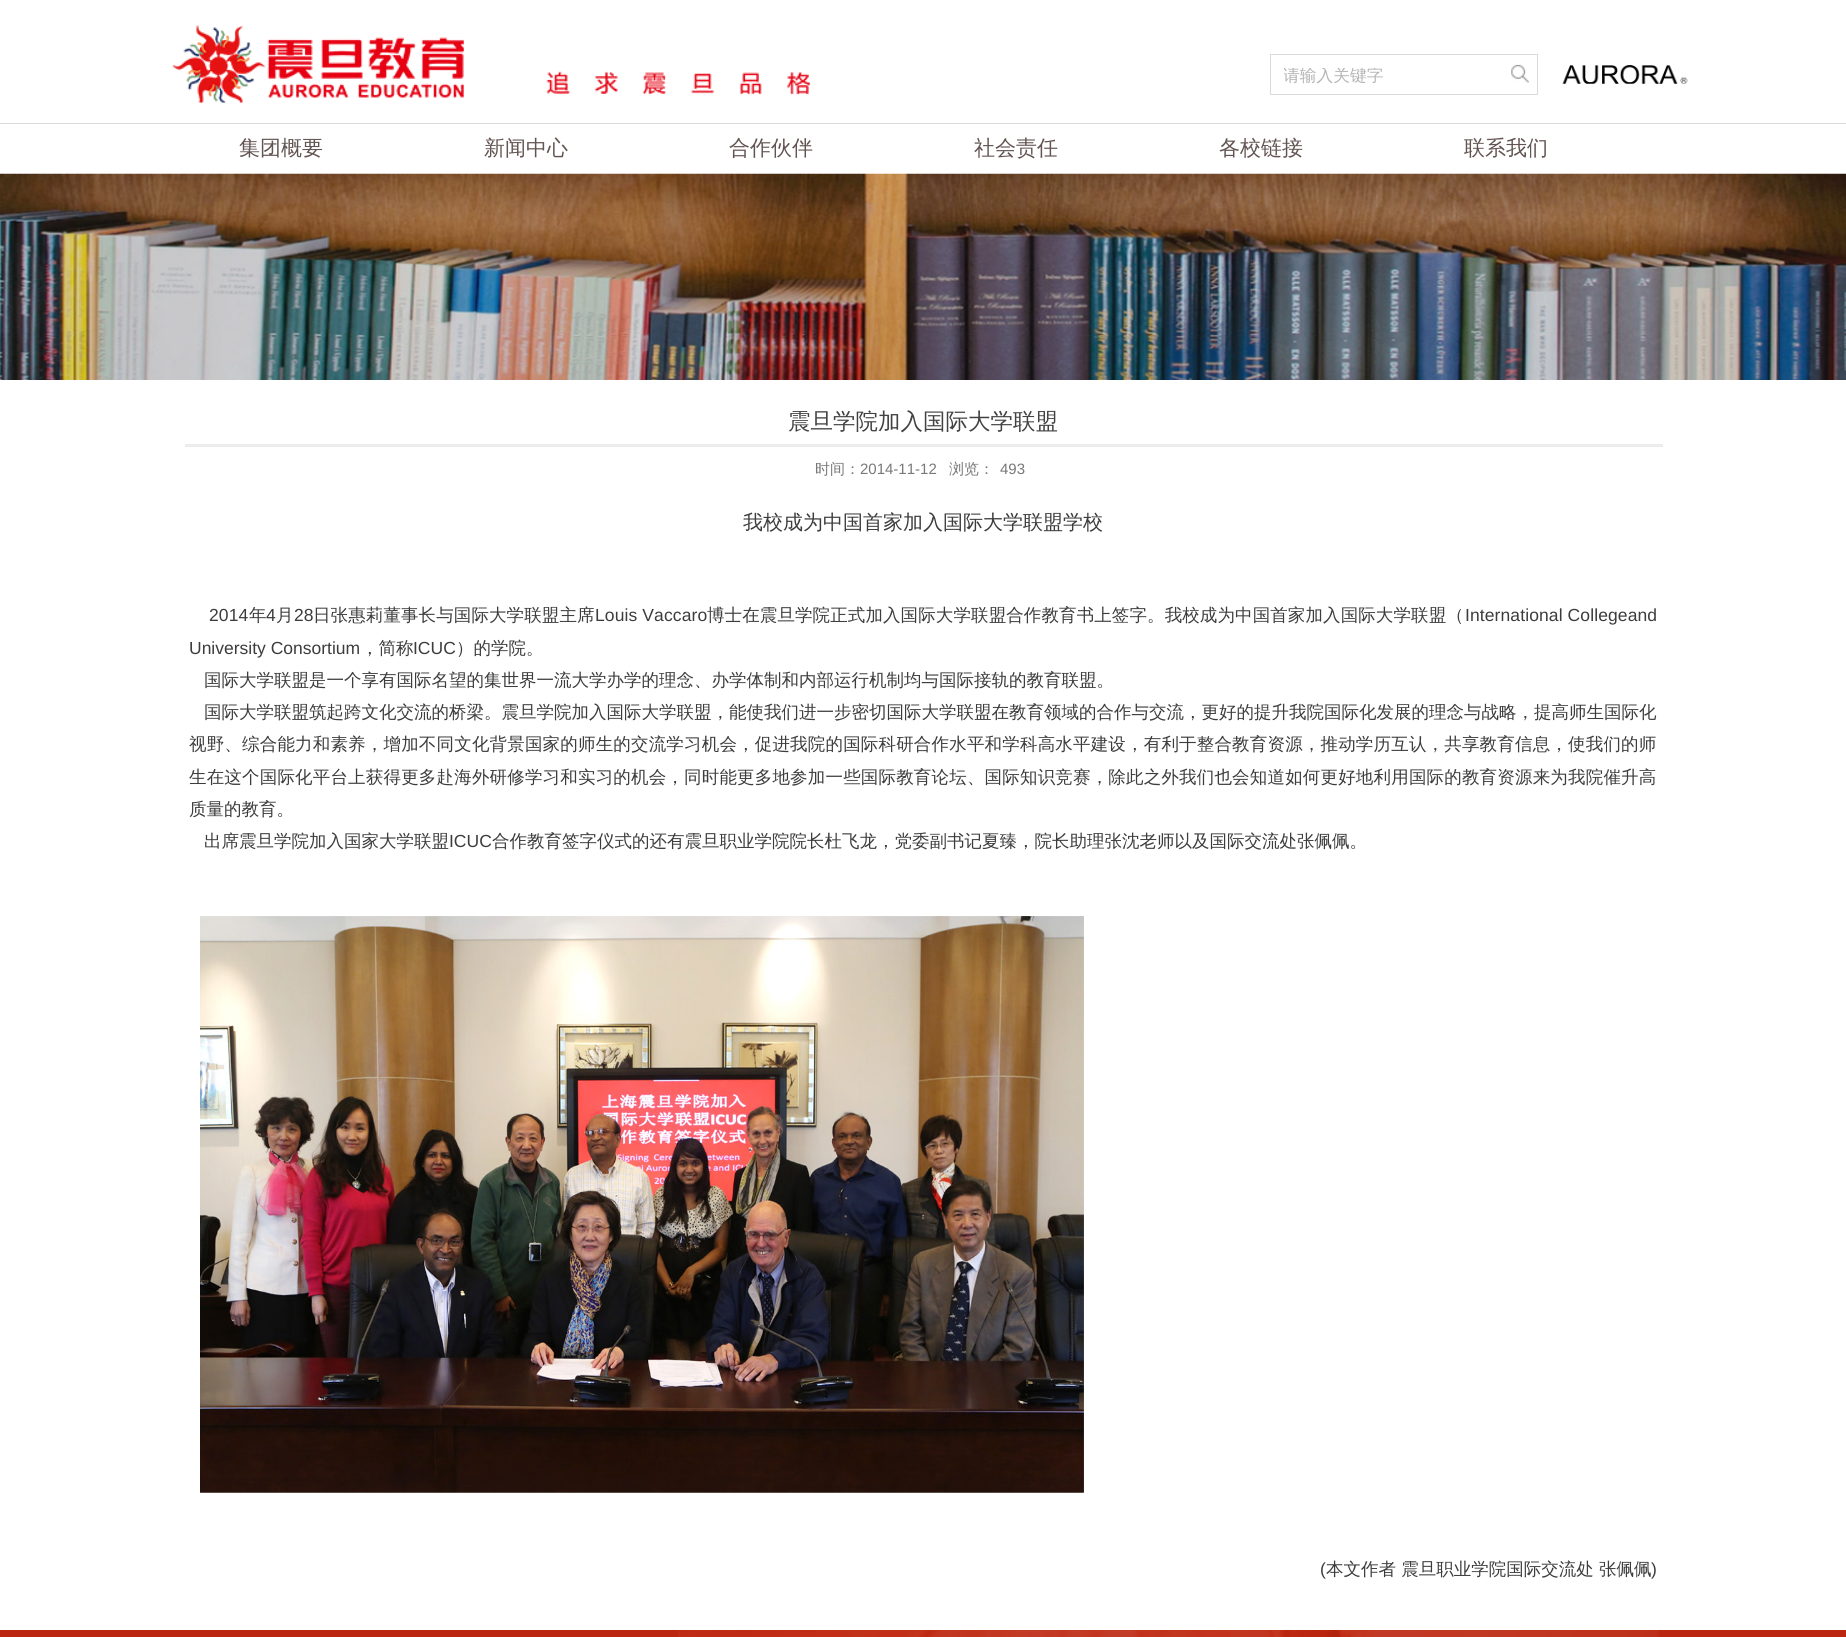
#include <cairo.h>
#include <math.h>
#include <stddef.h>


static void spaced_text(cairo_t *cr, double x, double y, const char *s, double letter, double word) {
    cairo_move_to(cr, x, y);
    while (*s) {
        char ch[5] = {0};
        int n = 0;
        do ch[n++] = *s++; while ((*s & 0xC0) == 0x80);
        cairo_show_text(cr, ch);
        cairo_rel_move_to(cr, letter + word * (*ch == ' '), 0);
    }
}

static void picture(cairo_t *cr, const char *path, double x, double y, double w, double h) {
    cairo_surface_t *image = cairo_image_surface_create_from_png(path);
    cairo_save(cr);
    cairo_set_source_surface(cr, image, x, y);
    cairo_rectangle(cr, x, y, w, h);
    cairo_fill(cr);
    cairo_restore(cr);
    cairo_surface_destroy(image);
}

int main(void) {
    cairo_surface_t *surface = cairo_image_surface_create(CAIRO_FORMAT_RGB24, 1846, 1637);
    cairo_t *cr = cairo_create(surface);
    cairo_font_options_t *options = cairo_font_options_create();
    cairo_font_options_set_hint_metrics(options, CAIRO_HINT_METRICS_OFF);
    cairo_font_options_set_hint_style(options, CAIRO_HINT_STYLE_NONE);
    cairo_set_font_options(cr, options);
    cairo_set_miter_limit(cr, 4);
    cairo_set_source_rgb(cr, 1, 1, 1);
    cairo_paint(cr);
    picture(cr, "img1.png", 172, 25, 638, 78);
    cairo_rectangle(cr, 1270.5, 54.5, 267, 40);
    cairo_set_source_rgb(cr, 0.859, 0.859, 0.859);
    cairo_set_line_width(cr, 1);
    cairo_stroke(cr);
    cairo_save(cr);
    cairo_rectangle(cr, 1284, 68, 217, 18);
    cairo_clip(cr);
    cairo_select_font_face(cr, "WenQuanYi Zen Hei Medium", CAIRO_FONT_SLANT_NORMAL, CAIRO_FONT_WEIGHT_NORMAL);
    cairo_set_font_size(cr, 16.75);
    cairo_set_source_rgb(cr, 0.706, 0.706, 0.706);
    cairo_move_to(cr, 1283, 81);
    cairo_show_text(cr, "请输入关键字");
    cairo_restore(cr);
    picture(cr, "img2.png", 1511, 64, 18, 19);
    picture(cr, "img3.png", 1562, 65, 126, 19);
    cairo_rectangle(cr, 0, 123, 1846, 1);
    cairo_fill(cr);
    cairo_select_font_face(cr, "WenQuanYi Zen Hei Medium", CAIRO_FONT_SLANT_NORMAL, CAIRO_FONT_WEIGHT_NORMAL);
    cairo_set_font_size(cr, 21);
    cairo_set_source_rgb(cr, 0.384, 0.329, 0.318);
    cairo_move_to(cr, 239, 155);
    cairo_show_text(cr, "集团概要");
    cairo_move_to(cr, 484, 155);
    cairo_show_text(cr, "新闻中心");
    cairo_move_to(cr, 729, 155);
    cairo_show_text(cr, "合作伙伴");
    cairo_move_to(cr, 974, 155);
    cairo_show_text(cr, "社会责任");
    cairo_move_to(cr, 1219, 155);
    cairo_show_text(cr, "各校链接");
    cairo_move_to(cr, 1464, 155);
    cairo_show_text(cr, "联系我们");
    picture(cr, "img4.png", 0, 173, 1846, 207);
    cairo_set_source_rgb(cr, 0.925, 0.925, 0.925);
    cairo_rectangle(cr, 185, 444, 1478, 3);
    cairo_fill(cr);
    cairo_set_font_size(cr, 22.5);
    cairo_set_source_rgb(cr, 0.259, 0.259, 0.259);
    cairo_move_to(cr, 788, 429);
    cairo_show_text(cr, "震旦学院加入国际大学联盟");
    cairo_set_font_size(cr, 15);
    cairo_set_source_rgb(cr, 0.471, 0.471, 0.471);
    cairo_move_to(cr, 815, 474);
    cairo_show_text(cr, "时间：");
    cairo_select_font_face(cr, "Liberation Sans", CAIRO_FONT_SLANT_NORMAL, CAIRO_FONT_WEIGHT_NORMAL);
    cairo_move_to(cr, 860, 474);
    cairo_show_text(cr, "2014-11-12");
    cairo_select_font_face(cr, "WenQuanYi Zen Hei Medium", CAIRO_FONT_SLANT_NORMAL, CAIRO_FONT_WEIGHT_NORMAL);
    cairo_move_to(cr, 949, 474);
    cairo_show_text(cr, "浏览：");
    cairo_select_font_face(cr, "Liberation Sans", CAIRO_FONT_SLANT_NORMAL, CAIRO_FONT_WEIGHT_NORMAL);
    cairo_move_to(cr, 1000, 474);
    cairo_show_text(cr, "493");
    cairo_select_font_face(cr, "WenQuanYi Zen Hei Medium", CAIRO_FONT_SLANT_NORMAL, CAIRO_FONT_WEIGHT_NORMAL);
    cairo_set_font_size(cr, 20);
    cairo_set_source_rgb(cr, 0.235, 0.235, 0.235);
    cairo_move_to(cr, 743, 529);
    cairo_show_text(cr, "我校成为中国首家加入国际大学联盟学校");
    cairo_select_font_face(cr, "Liberation Sans", CAIRO_FONT_SLANT_NORMAL, CAIRO_FONT_WEIGHT_NORMAL);
    cairo_set_font_size(cr, 17.5);
    spaced_text(cr, 209, 621, "2014", 0.1, 0);
    cairo_select_font_face(cr, "WenQuanYi Zen Hei Medium", CAIRO_FONT_SLANT_NORMAL, CAIRO_FONT_WEIGHT_NORMAL);
    spaced_text(cr, 249, 621, "年", 0.1, 0);
    cairo_select_font_face(cr, "Liberation Sans", CAIRO_FONT_SLANT_NORMAL, CAIRO_FONT_WEIGHT_NORMAL);
    spaced_text(cr, 266, 621, "4", 0.1, 0);
    cairo_select_font_face(cr, "WenQuanYi Zen Hei Medium", CAIRO_FONT_SLANT_NORMAL, CAIRO_FONT_WEIGHT_NORMAL);
    spaced_text(cr, 276, 621, "月", 0.1, 0);
    cairo_select_font_face(cr, "Liberation Sans", CAIRO_FONT_SLANT_NORMAL, CAIRO_FONT_WEIGHT_NORMAL);
    spaced_text(cr, 294, 621, "28", 0.1, 0);
    cairo_select_font_face(cr, "WenQuanYi Zen Hei Medium", CAIRO_FONT_SLANT_NORMAL, CAIRO_FONT_WEIGHT_NORMAL);
    spaced_text(cr, 313, 621, "日张惠莉董事长与国际大学联盟主席", 0.1, 0);
    cairo_select_font_face(cr, "Liberation Sans", CAIRO_FONT_SLANT_NORMAL, CAIRO_FONT_WEIGHT_NORMAL);
    spaced_text(cr, 595, 621, "Louis Vaccaro", 0.1, 0);
    cairo_select_font_face(cr, "WenQuanYi Zen Hei Medium", CAIRO_FONT_SLANT_NORMAL, CAIRO_FONT_WEIGHT_NORMAL);
    spaced_text(cr, 707, 621, "博士在震旦学院正式加入国际大学联盟合作教育书上签字。我校成为中国首家加入国际大学联盟（", 0.1, 0);
    cairo_select_font_face(cr, "Liberation Sans", CAIRO_FONT_SLANT_NORMAL, CAIRO_FONT_WEIGHT_NORMAL);
    spaced_text(cr, 1465, 621, "International Collegeand", 0.1, 0);
    cairo_move_to(cr, 189, 654);
    cairo_show_text(cr, "University Consortium");
    cairo_select_font_face(cr, "WenQuanYi Zen Hei Medium", CAIRO_FONT_SLANT_NORMAL, CAIRO_FONT_WEIGHT_NORMAL);
    cairo_move_to(cr, 361, 654);
    cairo_show_text(cr, "，简称");
    cairo_select_font_face(cr, "Liberation Sans", CAIRO_FONT_SLANT_NORMAL, CAIRO_FONT_WEIGHT_NORMAL);
    cairo_move_to(cr, 413, 654);
    cairo_show_text(cr, "ICUC");
    cairo_select_font_face(cr, "WenQuanYi Zen Hei Medium", CAIRO_FONT_SLANT_NORMAL, CAIRO_FONT_WEIGHT_NORMAL);
    cairo_move_to(cr, 456, 654);
    cairo_show_text(cr, "）的学院。");
    cairo_move_to(cr, 204, 686);
    cairo_show_text(cr, "国际大学联盟是一个享有国际名望的集世界一流大学办学的理念、办学体制和内部运行机制均与国际接轨的教育联盟。");
    cairo_move_to(cr, 204, 718);
    cairo_show_text(cr, "国际大学联盟筑起跨文化交流的桥梁。震旦学院加入国际大学联盟，能使我们进一步密切国际大学联盟在教育领域的合作与交流，更好的提升我院国际化发展的理念与战略，提高师生国际化");
    spaced_text(cr, 189, 750, "视野、综合能力和素养，增加不同文化背景国家的师生的交流学习机会，促进我院的国际科研合作水平和学科高水平建设，有利于整合教育资源，推动学历互认，共享教育信息，使我们的师", 0.18, 0);
    spaced_text(cr, 189, 783, "生在这个国际化平台上获得更多赴海外研修学习和实习的机会，同时能更多地参加一些国际教育论坛、国际知识竞赛，除此之外我们也会知道如何更好地利用国际的教育资源来为我院催升高", 0.18, 0);
    cairo_move_to(cr, 189, 815);
    cairo_show_text(cr, "质量的教育。");
    cairo_move_to(cr, 204, 847);
    cairo_show_text(cr, "出席震旦学院加入国家大学联盟");
    cairo_select_font_face(cr, "Liberation Sans", CAIRO_FONT_SLANT_NORMAL, CAIRO_FONT_WEIGHT_NORMAL);
    cairo_move_to(cr, 449, 847);
    cairo_show_text(cr, "ICUC");
    cairo_select_font_face(cr, "WenQuanYi Zen Hei Medium", CAIRO_FONT_SLANT_NORMAL, CAIRO_FONT_WEIGHT_NORMAL);
    cairo_move_to(cr, 492, 847);
    cairo_show_text(cr, "合作教育签字仪式的还有震旦职业学院院长杜飞龙，党委副书记夏臻，院长助理张沈老师以及国际交流处张佩佩。");
    picture(cr, "img5.png", 200, 916, 884, 577);
    picture(cr, "img6.png", 200, 916, 884, 577);
    cairo_select_font_face(cr, "Liberation Sans", CAIRO_FONT_SLANT_NORMAL, CAIRO_FONT_WEIGHT_NORMAL);
    cairo_move_to(cr, 1320, 1575);
    cairo_show_text(cr, "(");
    cairo_select_font_face(cr, "WenQuanYi Zen Hei Medium", CAIRO_FONT_SLANT_NORMAL, CAIRO_FONT_WEIGHT_NORMAL);
    cairo_move_to(cr, 1326, 1575);
    cairo_show_text(cr, "本文作者 震旦职业学院国际交流处 张佩佩");
    cairo_select_font_face(cr, "Liberation Sans", CAIRO_FONT_SLANT_NORMAL, CAIRO_FONT_WEIGHT_NORMAL);
    cairo_move_to(cr, 1651, 1575);
    cairo_show_text(cr, ")");
    cairo_set_source_rgb(cr, 0.729, 0.149, 0.059);
    cairo_rectangle(cr, 0, 1630, 1846, 7);
    cairo_fill(cr);
    picture(cr, "img7.png", 678, 1630, 981, 7);
    cairo_surface_write_to_png(surface, "page.png");
    cairo_font_options_destroy(options);
    cairo_destroy(cr);
    cairo_surface_destroy(surface);
    return 0;
}
